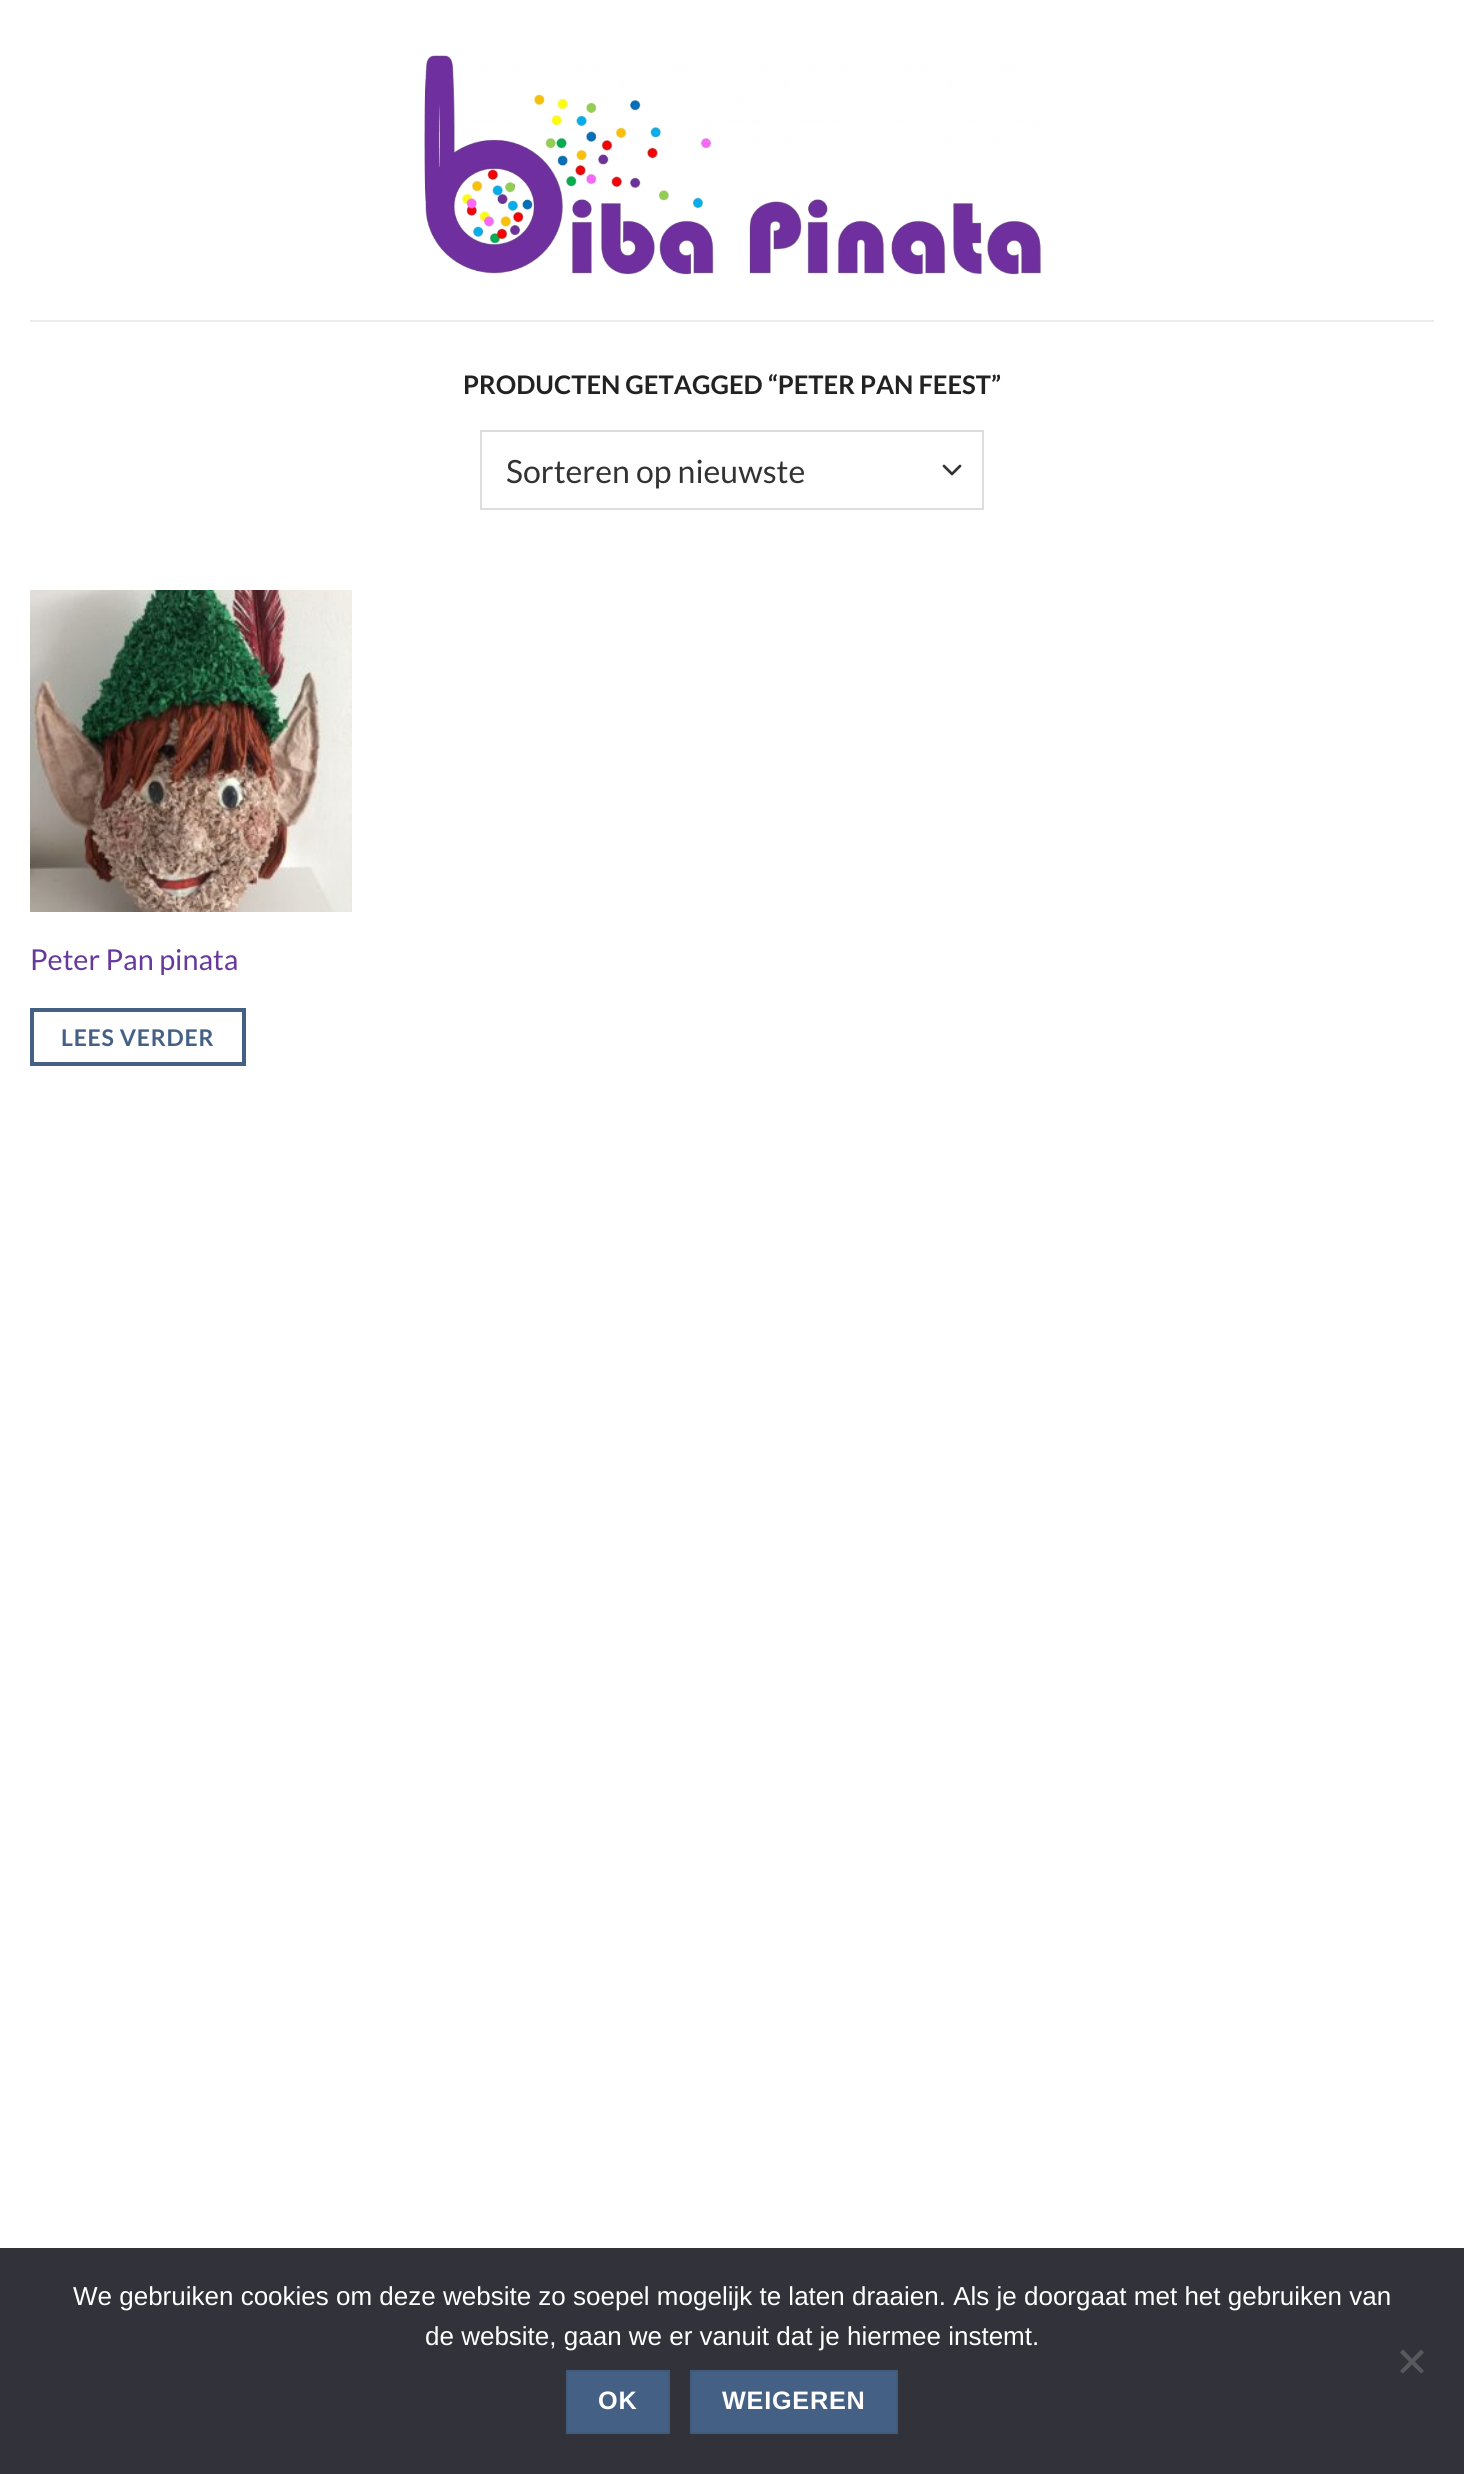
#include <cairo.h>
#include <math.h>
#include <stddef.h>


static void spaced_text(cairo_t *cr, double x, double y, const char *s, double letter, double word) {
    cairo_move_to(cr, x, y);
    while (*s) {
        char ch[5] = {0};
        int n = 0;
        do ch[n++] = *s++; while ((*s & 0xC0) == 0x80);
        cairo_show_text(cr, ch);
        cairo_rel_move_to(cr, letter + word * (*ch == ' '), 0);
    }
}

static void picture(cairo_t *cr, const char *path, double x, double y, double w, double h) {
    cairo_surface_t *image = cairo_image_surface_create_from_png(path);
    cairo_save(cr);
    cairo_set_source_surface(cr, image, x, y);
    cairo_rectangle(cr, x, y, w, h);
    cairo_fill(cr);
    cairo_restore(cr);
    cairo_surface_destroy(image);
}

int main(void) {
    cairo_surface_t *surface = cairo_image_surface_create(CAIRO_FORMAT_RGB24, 1464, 2474);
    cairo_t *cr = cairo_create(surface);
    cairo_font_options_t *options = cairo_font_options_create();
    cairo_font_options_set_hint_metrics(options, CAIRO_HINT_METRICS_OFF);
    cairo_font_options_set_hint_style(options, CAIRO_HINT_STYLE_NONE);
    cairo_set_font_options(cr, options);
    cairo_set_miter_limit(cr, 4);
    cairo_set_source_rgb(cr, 1, 1, 1);
    cairo_paint(cr);
    picture(cr, "img1.png", 424, 55, 617, 220);
    cairo_set_source_rgb(cr, 0.929, 0.929, 0.929);
    cairo_rectangle(cr, 30, 320, 1404, 2);
    cairo_fill(cr);
    cairo_select_font_face(cr, "Lato", CAIRO_FONT_SLANT_NORMAL, CAIRO_FONT_WEIGHT_BOLD);
    cairo_set_font_size(cr, 25.6);
    cairo_set_source_rgb(cr, 0.133, 0.133, 0.133);
    cairo_move_to(cr, 463, 394);
    cairo_show_text(cr, "PRODUCTEN GETAGGED “PETER PAN FEEST”");
    cairo_new_path(cr);
    cairo_move_to(cr, 944, 466);
    cairo_line_to(cr, 952, 474);
    cairo_line_to(cr, 960, 466);
    cairo_set_source_rgb(cr, 0.2, 0.2, 0.2);
    cairo_set_line_width(cr, 2.7);
    cairo_set_line_cap(cr, CAIRO_LINE_CAP_ROUND);
    cairo_set_line_join(cr, CAIRO_LINE_JOIN_ROUND);
    cairo_stroke(cr);
    cairo_rectangle(cr, 481, 431, 502, 78);
    cairo_set_source_rgb(cr, 0.867, 0.867, 0.867);
    cairo_set_line_width(cr, 2);
    cairo_set_line_cap(cr, CAIRO_LINE_CAP_BUTT);
    cairo_set_line_join(cr, CAIRO_LINE_JOIN_MITER);
    cairo_stroke(cr);
    cairo_select_font_face(cr, "Lato", CAIRO_FONT_SLANT_NORMAL, CAIRO_FONT_WEIGHT_NORMAL);
    cairo_set_font_size(cr, 32);
    cairo_set_source_rgb(cr, 0.2, 0.2, 0.2);
    cairo_move_to(cr, 506, 483);
    cairo_show_text(cr, "Sorteren op nieuwste");
    picture(cr, "img2.png", 30, 590, 322, 322);
    cairo_set_font_size(cr, 28.75);
    cairo_set_source_rgb(cr, 0.4, 0.224, 0.608);
    cairo_move_to(cr, 30, 970);
    cairo_show_text(cr, "Peter Pan pinata");
    cairo_rectangle(cr, 32, 1010, 212, 54);
    cairo_set_source_rgb(cr, 0.267, 0.376, 0.518);
    cairo_set_line_width(cr, 4);
    cairo_stroke(cr);
    cairo_select_font_face(cr, "Lato", CAIRO_FONT_SLANT_NORMAL, CAIRO_FONT_WEIGHT_BOLD);
    cairo_set_font_size(cr, 23);
    spaced_text(cr, 61, 1046, "LEES VERDER", 0.75, 0);
    cairo_set_source_rgb(cr, 0.196, 0.196, 0.227);
    cairo_rectangle(cr, 0, 2248, 1464, 226);
    cairo_fill(cr);
    cairo_select_font_face(cr, "Liberation Sans", CAIRO_FONT_SLANT_NORMAL, CAIRO_FONT_WEIGHT_NORMAL);
    cairo_set_font_size(cr, 26);
    cairo_set_source_rgb(cr, 1, 1, 1);
    cairo_move_to(cr, 73, 2305);
    cairo_show_text(cr, "We gebruiken cookies om deze website zo soepel mogelijk te laten draaien. Als je doorgaat met het gebruiken van");
    cairo_move_to(cr, 425, 2345);
    cairo_show_text(cr, "de website, gaan we er vanuit dat je hiermee instemt.");
    cairo_set_source_rgb(cr, 0.349, 0.349, 0.365);
    cairo_new_path(cr);
    cairo_move_to(cr, 1421, 2349.5);
    cairo_line_to(cr, 1424, 2352.5);
    cairo_line_to(cr, 1403, 2373.5);
    cairo_line_to(cr, 1400, 2371);
    cairo_close_path(cr);
    cairo_fill(cr);
    cairo_new_path(cr);
    cairo_move_to(cr, 1400, 2352.5);
    cairo_line_to(cr, 1403, 2349.5);
    cairo_line_to(cr, 1424, 2371);
    cairo_line_to(cr, 1421, 2373.5);
    cairo_close_path(cr);
    cairo_fill(cr);
    cairo_set_source_rgb(cr, 0.267, 0.376, 0.518);
    cairo_rectangle(cr, 567, 2371, 102, 62);
    cairo_fill_preserve(cr);
    cairo_set_source_rgb(cr, 0.255, 0.357, 0.49);
    cairo_set_line_width(cr, 2);
    cairo_stroke(cr);
    cairo_select_font_face(cr, "Liberation Sans", CAIRO_FONT_SLANT_NORMAL, CAIRO_FONT_WEIGHT_BOLD);
    cairo_set_font_size(cr, 25.25);
    cairo_set_source_rgb(cr, 1, 1, 1);
    spaced_text(cr, 598, 2409, "OK", 0.75, 0);
    cairo_set_source_rgb(cr, 0.267, 0.376, 0.518);
    cairo_rectangle(cr, 691, 2371, 206, 62);
    cairo_fill_preserve(cr);
    cairo_set_source_rgb(cr, 0.255, 0.357, 0.49);
    cairo_stroke(cr);
    cairo_set_source_rgb(cr, 1, 1, 1);
    spaced_text(cr, 722, 2409, "WEIGEREN", 0.75, 0);
    cairo_surface_write_to_png(surface, "page.png");
    cairo_font_options_destroy(options);
    cairo_destroy(cr);
    cairo_surface_destroy(surface);
    return 0;
}
